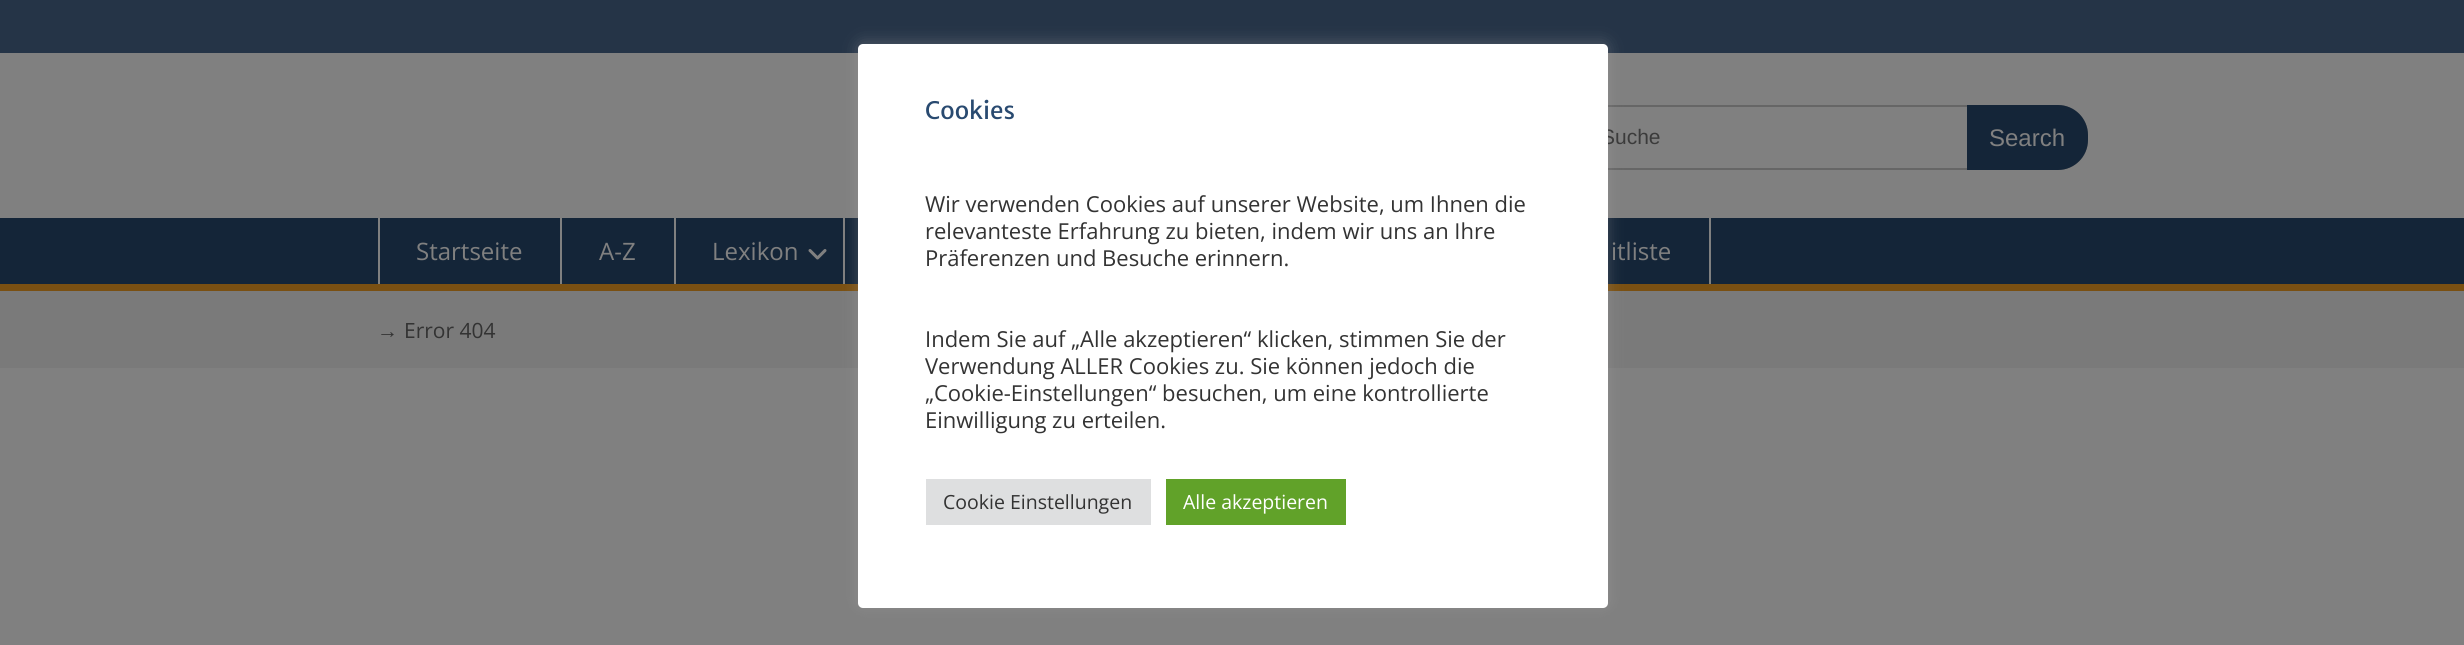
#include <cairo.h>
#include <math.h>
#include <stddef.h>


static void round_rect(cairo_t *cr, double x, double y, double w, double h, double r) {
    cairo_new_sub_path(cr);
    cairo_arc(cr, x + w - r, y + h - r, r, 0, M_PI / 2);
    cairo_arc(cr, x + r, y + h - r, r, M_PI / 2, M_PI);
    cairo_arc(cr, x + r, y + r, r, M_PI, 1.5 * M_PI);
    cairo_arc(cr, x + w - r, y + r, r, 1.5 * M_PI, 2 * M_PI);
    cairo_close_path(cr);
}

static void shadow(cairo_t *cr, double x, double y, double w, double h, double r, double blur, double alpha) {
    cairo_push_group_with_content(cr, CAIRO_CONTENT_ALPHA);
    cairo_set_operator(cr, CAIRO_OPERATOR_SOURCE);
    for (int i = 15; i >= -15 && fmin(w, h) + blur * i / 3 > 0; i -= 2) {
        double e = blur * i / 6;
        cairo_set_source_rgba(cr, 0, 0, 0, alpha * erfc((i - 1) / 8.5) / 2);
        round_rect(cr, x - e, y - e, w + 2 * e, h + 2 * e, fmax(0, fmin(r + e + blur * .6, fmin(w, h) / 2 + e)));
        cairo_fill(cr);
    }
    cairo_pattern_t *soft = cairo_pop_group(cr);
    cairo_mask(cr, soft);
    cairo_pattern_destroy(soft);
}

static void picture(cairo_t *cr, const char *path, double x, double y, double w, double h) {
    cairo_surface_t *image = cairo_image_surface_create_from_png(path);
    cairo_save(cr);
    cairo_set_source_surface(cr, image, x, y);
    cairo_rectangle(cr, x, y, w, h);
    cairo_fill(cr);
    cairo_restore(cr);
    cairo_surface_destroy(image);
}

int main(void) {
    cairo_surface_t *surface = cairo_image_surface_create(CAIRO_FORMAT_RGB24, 2464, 645);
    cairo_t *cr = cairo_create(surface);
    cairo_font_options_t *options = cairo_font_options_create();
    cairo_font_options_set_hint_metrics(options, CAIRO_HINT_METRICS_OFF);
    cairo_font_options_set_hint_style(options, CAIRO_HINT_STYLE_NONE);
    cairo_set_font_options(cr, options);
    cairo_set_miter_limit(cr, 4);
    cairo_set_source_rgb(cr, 0.502, 0.502, 0.502);
    cairo_paint(cr);
    cairo_set_source_rgb(cr, 0.145, 0.204, 0.278);
    cairo_rectangle(cr, 0, 0, 2464, 53);
    cairo_fill(cr);
    round_rect(cr, 1576, 106, 511, 63, 29);
    cairo_set_source_rgb(cr, 0.4, 0.4, 0.4);
    cairo_stroke(cr);
    cairo_set_source_rgb(cr, 0.082, 0.145, 0.22);
    cairo_rectangle(cr, 0, 218, 2464, 66);
    cairo_fill(cr);
    cairo_set_source_rgb(cr, 0.478, 0.314, 0.071);
    cairo_rectangle(cr, 0, 284, 2464, 7);
    cairo_fill(cr);
    cairo_set_source_rgb(cr, 0.502, 0.502, 0.502);
    cairo_rectangle(cr, 843, 218, 2, 66);
    cairo_fill(cr);
    cairo_set_source_rgb(cr, 0.478, 0.478, 0.478);
    cairo_rectangle(cr, 0, 291, 2464, 77);
    cairo_fill(cr);
    cairo_set_source_rgb(cr, 0.675, 0.671, 0.671);
    shadow(cr, 858, 42, 750, 564, 5, 7.5, 0.3);
    cairo_select_font_face(cr, "Liberation Sans", CAIRO_FONT_SLANT_NORMAL, CAIRO_FONT_WEIGHT_NORMAL);
    cairo_set_font_size(cr, 21);
    cairo_set_source_rgb(cr, 0.231, 0.231, 0.231);
    cairo_move_to(cr, 1601, 144);
    cairo_show_text(cr, "Suche");
    cairo_set_source_rgb(cr, 1, 1, 1);
    round_rect(cr, 858, 44, 750, 564, 5);
    cairo_fill(cr);
    cairo_select_font_face(cr, "Merriweather Sans", CAIRO_FONT_SLANT_NORMAL, CAIRO_FONT_WEIGHT_NORMAL);
    cairo_set_font_size(cr, 24);
    cairo_set_source_rgb(cr, 0.161, 0.29, 0.439);
    cairo_move_to(cr, 925, 119);
    cairo_show_text(cr, "Cookies");
    cairo_select_font_face(cr, "Open Sans", CAIRO_FONT_SLANT_NORMAL, CAIRO_FONT_WEIGHT_NORMAL);
    cairo_set_font_size(cr, 22);
    cairo_set_source_rgb(cr, 0.2, 0.2, 0.2);
    cairo_move_to(cr, 925, 212);
    cairo_show_text(cr, "Wir verwenden Cookies auf unserer Website, um Ihnen die");
    cairo_move_to(cr, 925, 239);
    cairo_show_text(cr, "relevanteste Erfahrung zu bieten, indem wir uns an Ihre");
    cairo_move_to(cr, 925, 266);
    cairo_show_text(cr, "Präferenzen und Besuche erinnern.");
    cairo_move_to(cr, 925, 347);
    cairo_show_text(cr, "Indem Sie auf „Alle akzeptieren“ klicken, stimmen Sie der");
    cairo_move_to(cr, 925, 374);
    cairo_show_text(cr, "Verwendung ALLER Cookies zu. Sie können jedoch die");
    cairo_move_to(cr, 925, 401);
    cairo_show_text(cr, "„Cookie-Einstellungen“ besuchen, um eine kontrollierte");
    cairo_move_to(cr, 925, 428);
    cairo_show_text(cr, "Einwilligung zu erteilen.");
    cairo_set_source_rgb(cr, 0.871, 0.875, 0.878);
    cairo_rectangle(cr, 926, 479, 225, 46);
    cairo_fill(cr);
    cairo_set_font_size(cr, 19.5);
    cairo_set_source_rgb(cr, 0.2, 0.2, 0.2);
    cairo_move_to(cr, 943, 509);
    cairo_show_text(cr, "Cookie Einstellungen");
    cairo_set_source_rgb(cr, 0.38, 0.635, 0.161);
    cairo_rectangle(cr, 1166, 479, 180, 46);
    cairo_fill(cr);
    cairo_set_source_rgb(cr, 1, 1, 1);
    cairo_move_to(cr, 1183, 509);
    cairo_show_text(cr, "Alle akzeptieren");
    cairo_set_source_rgb(cr, 0.082, 0.145, 0.22);
    cairo_new_path(cr);
    cairo_move_to(cr, 1967, 105);
    cairo_line_to(cr, 2058, 105);
    cairo_curve_to(cr, 2074.5, 105, 2088, 118.5, 2088, 135);
    cairo_line_to(cr, 2088, 140);
    cairo_curve_to(cr, 2088, 156.5, 2074.5, 170, 2058, 170);
    cairo_line_to(cr, 1967, 170);
    cairo_close_path(cr);
    cairo_fill(cr);
    cairo_select_font_face(cr, "Liberation Sans", CAIRO_FONT_SLANT_NORMAL, CAIRO_FONT_WEIGHT_NORMAL);
    cairo_set_font_size(cr, 24);
    cairo_set_source_rgb(cr, 0.502, 0.502, 0.502);
    cairo_move_to(cr, 1989, 146);
    cairo_show_text(cr, "Search");
    cairo_rectangle(cr, 560, 218, 2, 66);
    cairo_fill(cr);
    cairo_rectangle(cr, 378, 218, 2, 66);
    cairo_fill(cr);
    cairo_select_font_face(cr, "Open Sans", CAIRO_FONT_SLANT_NORMAL, CAIRO_FONT_WEIGHT_NORMAL);
    cairo_move_to(cr, 416, 260);
    cairo_show_text(cr, "Startseite");
    cairo_rectangle(cr, 674, 218, 2, 66);
    cairo_fill(cr);
    cairo_move_to(cr, 599, 260);
    cairo_show_text(cr, "A-Z");
    cairo_move_to(cr, 712, 260);
    cairo_show_text(cr, "Lexikon");
    picture(cr, "img1.png", 808, 249, 19, 11);
    cairo_rectangle(cr, 1709, 218, 2, 66);
    cairo_fill(cr);
    cairo_move_to(cr, 1611, 260);
    cairo_show_text(cr, "itliste");
    cairo_select_font_face(cr, "Liberation Sans", CAIRO_FONT_SLANT_NORMAL, CAIRO_FONT_WEIGHT_NORMAL);
    cairo_set_font_size(cr, 21);
    cairo_set_source_rgb(cr, 0.2, 0.2, 0.2);
    cairo_move_to(cr, 377, 338);
    cairo_show_text(cr, "→");
    cairo_select_font_face(cr, "Open Sans", CAIRO_FONT_SLANT_NORMAL, CAIRO_FONT_WEIGHT_NORMAL);
    cairo_move_to(cr, 404, 338);
    cairo_show_text(cr, "Error 404");
    cairo_surface_write_to_png(surface, "page.png");
    cairo_font_options_destroy(options);
    cairo_destroy(cr);
    cairo_surface_destroy(surface);
    return 0;
}
